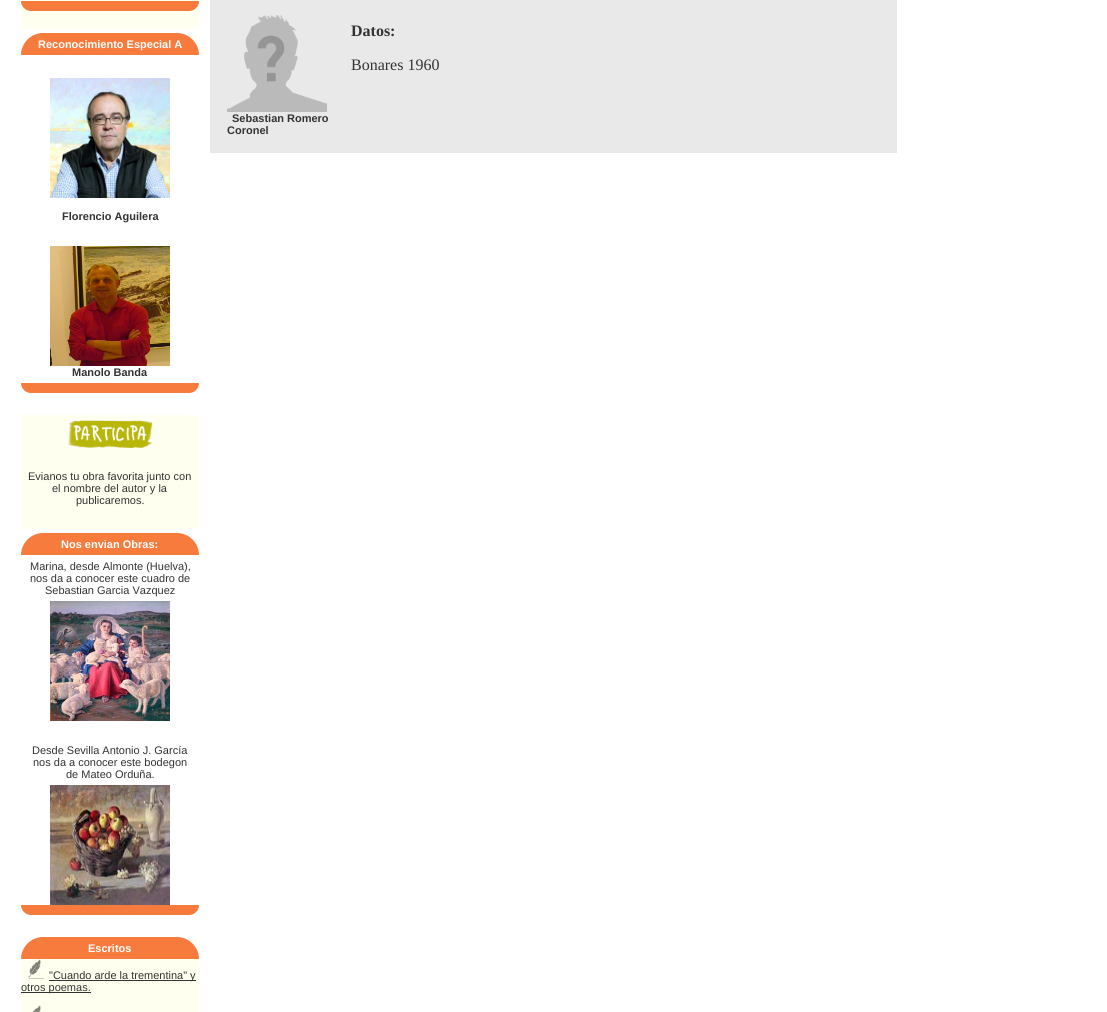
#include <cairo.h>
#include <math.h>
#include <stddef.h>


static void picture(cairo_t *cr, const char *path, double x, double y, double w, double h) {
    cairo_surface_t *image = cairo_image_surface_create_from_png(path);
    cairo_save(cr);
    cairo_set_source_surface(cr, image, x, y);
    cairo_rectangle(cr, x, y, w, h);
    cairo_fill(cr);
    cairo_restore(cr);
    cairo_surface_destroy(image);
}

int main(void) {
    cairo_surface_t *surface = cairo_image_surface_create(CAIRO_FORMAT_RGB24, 1107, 1012);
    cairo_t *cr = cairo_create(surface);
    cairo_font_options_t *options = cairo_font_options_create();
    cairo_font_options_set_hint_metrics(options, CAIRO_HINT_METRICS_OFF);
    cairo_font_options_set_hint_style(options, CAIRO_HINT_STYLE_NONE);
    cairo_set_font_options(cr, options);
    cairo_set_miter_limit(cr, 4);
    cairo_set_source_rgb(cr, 1, 1, 1);
    cairo_paint(cr);
    cairo_set_source_rgb(cr, 1, 1, 0.941);
    cairo_rectangle(cr, 21, 0, 178, 29);
    cairo_fill(cr);
    cairo_set_source_rgb(cr, 0.961, 0.482, 0.239);
    cairo_new_path(cr);
    cairo_move_to(cr, 21, 1);
    cairo_line_to(cr, 199, 1);
    cairo_curve_to(cr, 199, 6.5, 194.5, 11, 189, 11);
    cairo_line_to(cr, 31, 11);
    cairo_curve_to(cr, 25.5, 11, 21, 6.5, 21, 1);
    cairo_close_path(cr);
    cairo_fill(cr);
    cairo_new_path(cr);
    cairo_move_to(cr, 43, 33);
    cairo_line_to(cr, 177, 33);
    cairo_curve_to(cr, 189, 33, 199, 43, 199, 55);
    cairo_line_to(cr, 21, 55);
    cairo_curve_to(cr, 21, 43, 31, 33, 43, 33);
    cairo_close_path(cr);
    cairo_fill(cr);
    cairo_select_font_face(cr, "Liberation Sans", CAIRO_FONT_SLANT_NORMAL, CAIRO_FONT_WEIGHT_BOLD);
    cairo_set_font_size(cr, 11);
    cairo_set_source_rgb(cr, 1, 1, 1);
    cairo_move_to(cr, 38, 48);
    cairo_show_text(cr, "Reconocimiento Especial A");
    picture(cr, "img1.png", 50, 78, 120, 120);
    cairo_set_source_rgb(cr, 0.2, 0.2, 0.2);
    cairo_move_to(cr, 62, 220);
    cairo_show_text(cr, "Florencio Aguilera");
    picture(cr, "img2.png", 50, 246, 120, 120);
    cairo_move_to(cr, 72, 376);
    cairo_show_text(cr, "Manolo Banda");
    cairo_set_source_rgb(cr, 0.961, 0.482, 0.239);
    cairo_new_path(cr);
    cairo_move_to(cr, 21, 383);
    cairo_line_to(cr, 199, 383);
    cairo_curve_to(cr, 199, 388.5, 194.5, 393, 189, 393);
    cairo_line_to(cr, 31, 393);
    cairo_curve_to(cr, 25.5, 393, 21, 388.5, 21, 383);
    cairo_close_path(cr);
    cairo_fill(cr);
    cairo_set_source_rgb(cr, 1, 1, 0.941);
    cairo_rectangle(cr, 21, 415, 178, 114);
    cairo_fill(cr);
    picture(cr, "img3.png", 68, 420, 84, 28);
    cairo_select_font_face(cr, "Liberation Sans", CAIRO_FONT_SLANT_NORMAL, CAIRO_FONT_WEIGHT_NORMAL);
    cairo_set_source_rgb(cr, 0.2, 0.2, 0.2);
    cairo_move_to(cr, 28, 480);
    cairo_show_text(cr, "Evianos tu obra favorita junto con");
    cairo_move_to(cr, 52, 492);
    cairo_show_text(cr, "el nombre del autor y la");
    cairo_move_to(cr, 76, 504);
    cairo_show_text(cr, "publicaremos.");
    cairo_set_source_rgb(cr, 0.961, 0.482, 0.239);
    cairo_new_path(cr);
    cairo_move_to(cr, 43, 533);
    cairo_line_to(cr, 177, 533);
    cairo_curve_to(cr, 189, 533, 199, 543, 199, 555);
    cairo_line_to(cr, 21, 555);
    cairo_curve_to(cr, 21, 543, 31, 533, 43, 533);
    cairo_close_path(cr);
    cairo_fill(cr);
    cairo_select_font_face(cr, "Liberation Sans", CAIRO_FONT_SLANT_NORMAL, CAIRO_FONT_WEIGHT_BOLD);
    cairo_set_source_rgb(cr, 1, 1, 1);
    cairo_move_to(cr, 61, 548);
    cairo_show_text(cr, "Nos envian Obras:");
    cairo_select_font_face(cr, "Liberation Sans", CAIRO_FONT_SLANT_NORMAL, CAIRO_FONT_WEIGHT_NORMAL);
    cairo_set_source_rgb(cr, 0.2, 0.2, 0.2);
    cairo_move_to(cr, 30, 570);
    cairo_show_text(cr, "Marina, desde Almonte (Huelva),");
    cairo_move_to(cr, 30, 582);
    cairo_show_text(cr, "nos da a conocer este cuadro de");
    cairo_move_to(cr, 45, 594);
    cairo_show_text(cr, "Sebastian Garcia Vazquez");
    picture(cr, "img4.png", 50, 601, 120, 120);
    cairo_move_to(cr, 32, 754);
    cairo_show_text(cr, "Desde Sevilla Antonio J. García");
    cairo_move_to(cr, 33, 766);
    cairo_show_text(cr, "nos da a conocer este bodegon");
    cairo_move_to(cr, 66, 778);
    cairo_show_text(cr, "de Mateo Orduña.");
    picture(cr, "img5.png", 50, 785, 120, 120);
    cairo_set_source_rgb(cr, 0.961, 0.482, 0.239);
    cairo_new_path(cr);
    cairo_move_to(cr, 21, 905);
    cairo_line_to(cr, 199, 905);
    cairo_curve_to(cr, 199, 910.5, 194.5, 915, 189, 915);
    cairo_line_to(cr, 31, 915);
    cairo_curve_to(cr, 25.5, 915, 21, 910.5, 21, 905);
    cairo_close_path(cr);
    cairo_fill(cr);
    cairo_new_path(cr);
    cairo_move_to(cr, 43, 937);
    cairo_line_to(cr, 177, 937);
    cairo_curve_to(cr, 189, 937, 199, 947, 199, 959);
    cairo_line_to(cr, 21, 959);
    cairo_curve_to(cr, 21, 947, 31, 937, 43, 937);
    cairo_close_path(cr);
    cairo_fill(cr);
    cairo_select_font_face(cr, "Liberation Sans", CAIRO_FONT_SLANT_NORMAL, CAIRO_FONT_WEIGHT_BOLD);
    cairo_set_source_rgb(cr, 1, 1, 1);
    cairo_move_to(cr, 88, 952);
    cairo_show_text(cr, "Escritos");
    cairo_set_source_rgb(cr, 1, 1, 0.941);
    cairo_rectangle(cr, 21, 959, 178, 53);
    cairo_fill(cr);
    picture(cr, "img6.png", 28, 959, 16, 20);
    cairo_set_source_rgb(cr, 0.2, 0.2, 0.2);
    cairo_rectangle(cr, 49, 980, 147, 1);
    cairo_fill(cr);
    cairo_select_font_face(cr, "Liberation Sans", CAIRO_FONT_SLANT_NORMAL, CAIRO_FONT_WEIGHT_NORMAL);
    cairo_move_to(cr, 49, 979);
    cairo_show_text(cr, "\"Cuando arde la trementina\" y");
    cairo_rectangle(cr, 21, 992, 70, 1);
    cairo_fill(cr);
    cairo_move_to(cr, 21, 991);
    cairo_show_text(cr, "otros poemas.");
    picture(cr, "img7.png", 32, 1005, 9, 7);
    cairo_set_source_rgb(cr, 0.914, 0.914, 0.914);
    cairo_rectangle(cr, 210, 0, 687, 153);
    cairo_fill(cr);
    cairo_select_font_face(cr, "Liberation Serif", CAIRO_FONT_SLANT_NORMAL, CAIRO_FONT_WEIGHT_BOLD);
    cairo_set_font_size(cr, 16);
    cairo_set_source_rgb(cr, 0.2, 0.2, 0.2);
    cairo_move_to(cr, 351, 36);
    cairo_show_text(cr, "Datos:");
    cairo_select_font_face(cr, "Liberation Serif", CAIRO_FONT_SLANT_NORMAL, CAIRO_FONT_WEIGHT_NORMAL);
    cairo_move_to(cr, 351, 70);
    cairo_show_text(cr, "Bonares 1960");
    picture(cr, "img8.png", 227, 15, 100, 97);
    cairo_select_font_face(cr, "Liberation Sans", CAIRO_FONT_SLANT_NORMAL, CAIRO_FONT_WEIGHT_BOLD);
    cairo_set_font_size(cr, 11);
    cairo_move_to(cr, 232, 122);
    cairo_show_text(cr, "Sebastian Romero");
    cairo_move_to(cr, 227, 134);
    cairo_show_text(cr, "Coronel");
    cairo_surface_write_to_png(surface, "page.png");
    cairo_font_options_destroy(options);
    cairo_destroy(cr);
    cairo_surface_destroy(surface);
    return 0;
}
